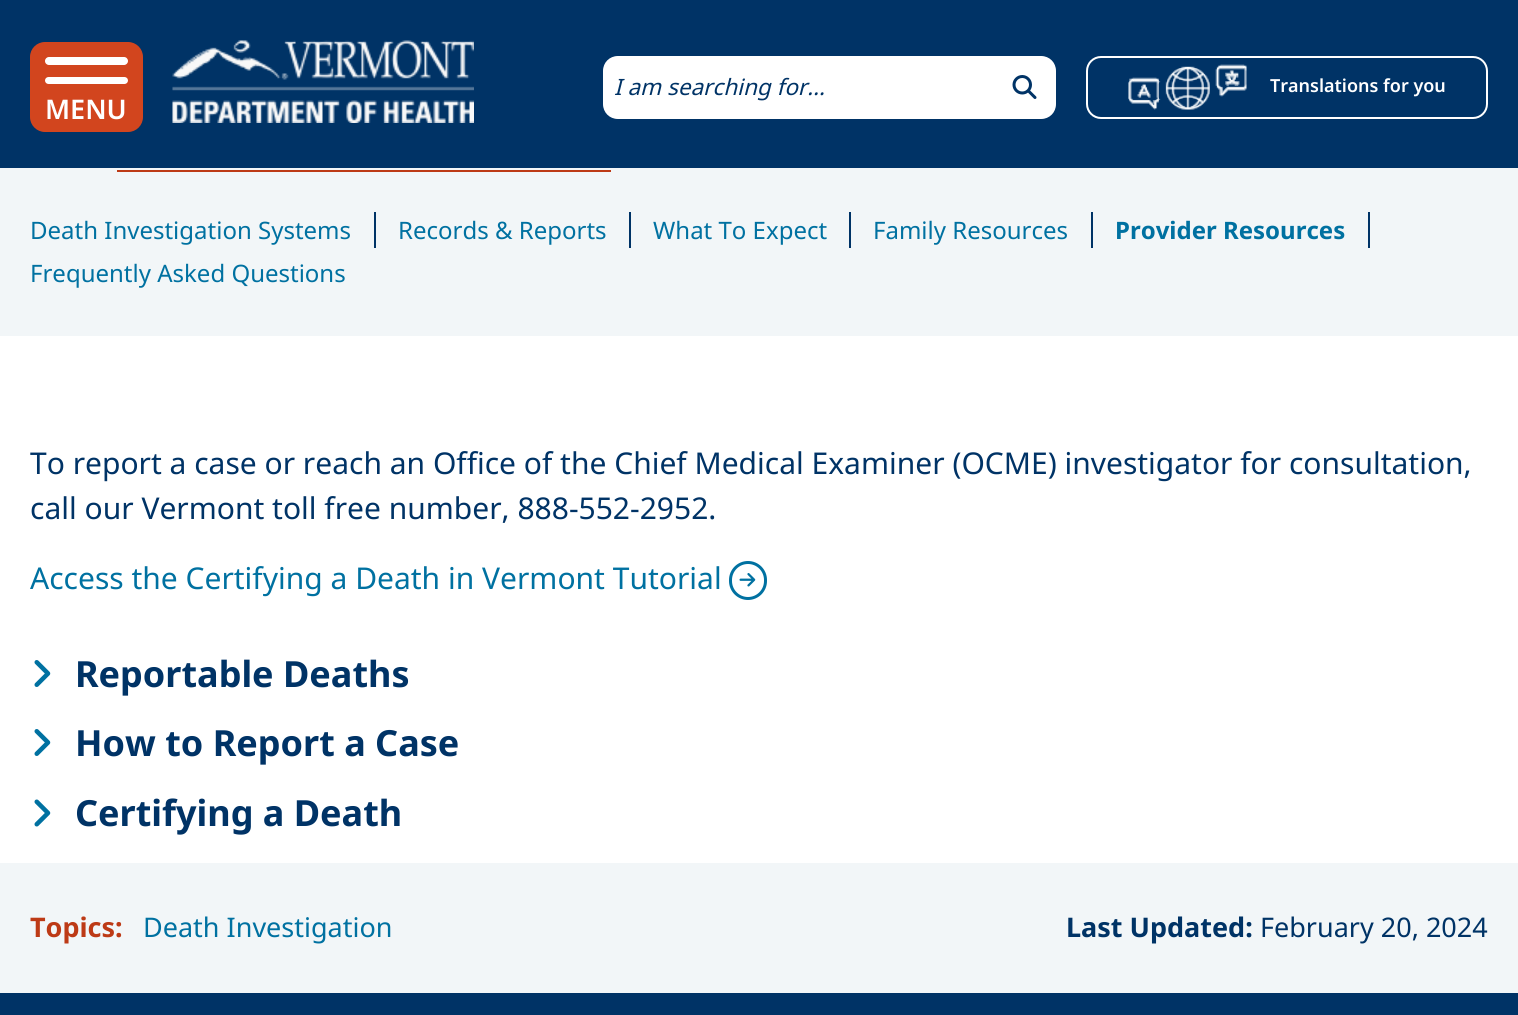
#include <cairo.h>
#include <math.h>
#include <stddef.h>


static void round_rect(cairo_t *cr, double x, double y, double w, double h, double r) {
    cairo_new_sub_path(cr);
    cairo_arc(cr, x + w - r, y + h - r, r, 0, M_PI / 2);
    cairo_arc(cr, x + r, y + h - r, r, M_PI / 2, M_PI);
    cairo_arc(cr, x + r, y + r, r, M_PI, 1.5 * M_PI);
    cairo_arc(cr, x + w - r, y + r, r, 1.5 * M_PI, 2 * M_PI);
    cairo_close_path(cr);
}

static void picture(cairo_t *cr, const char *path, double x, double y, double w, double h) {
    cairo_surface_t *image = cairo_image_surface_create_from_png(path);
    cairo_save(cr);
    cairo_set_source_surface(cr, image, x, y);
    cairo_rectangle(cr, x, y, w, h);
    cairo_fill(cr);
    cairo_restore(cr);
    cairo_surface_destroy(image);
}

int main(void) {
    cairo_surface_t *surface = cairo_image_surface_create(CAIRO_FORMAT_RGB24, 1518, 1015);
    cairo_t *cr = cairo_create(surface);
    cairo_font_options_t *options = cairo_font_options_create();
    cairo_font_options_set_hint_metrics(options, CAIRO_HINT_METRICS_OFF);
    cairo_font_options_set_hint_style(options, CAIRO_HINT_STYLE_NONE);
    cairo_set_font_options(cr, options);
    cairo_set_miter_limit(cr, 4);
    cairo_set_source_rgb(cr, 1, 1, 1);
    cairo_paint(cr);
    cairo_set_source_rgb(cr, 0, 0.2, 0.4);
    cairo_rectangle(cr, 0, 0, 1518, 168);
    cairo_fill(cr);
    picture(cr, "img1.png", 172, 40, 302, 83);
    cairo_set_source_rgb(cr, 1, 1, 1);
    cairo_new_path(cr);
    cairo_move_to(cr, 618, 56);
    cairo_line_to(cr, 993, 56);
    cairo_line_to(cr, 993, 119);
    cairo_line_to(cr, 618, 119);
    cairo_curve_to(cr, 609.5, 119, 603, 112.5, 603, 104);
    cairo_line_to(cr, 603, 71);
    cairo_curve_to(cr, 603, 62.5, 609.5, 56, 618, 56);
    cairo_close_path(cr);
    cairo_fill(cr);
    cairo_select_font_face(cr, "Noto Sans", CAIRO_FONT_SLANT_ITALIC, CAIRO_FONT_WEIGHT_NORMAL);
    cairo_set_font_size(cr, 22.5);
    cairo_set_source_rgb(cr, 0, 0.2, 0.4);
    cairo_move_to(cr, 614, 95);
    cairo_show_text(cr, "I am searching for…");
    cairo_set_source_rgb(cr, 1, 1, 1);
    cairo_new_path(cr);
    cairo_move_to(cr, 993, 56);
    cairo_line_to(cr, 1041, 56);
    cairo_curve_to(cr, 1049.5, 56, 1056, 62.5, 1056, 71);
    cairo_line_to(cr, 1056, 104);
    cairo_curve_to(cr, 1056, 112.5, 1049.5, 119, 1041, 119);
    cairo_line_to(cr, 993, 119);
    cairo_close_path(cr);
    cairo_fill(cr);
    picture(cr, "img2.png", 1012, 75, 25, 24);
    round_rect(cr, 1087, 57, 400, 61, 14);
    cairo_stroke(cr);
    picture(cr, "img3.png", 1128, 64, 119, 46);
    cairo_select_font_face(cr, "Noto Sans SemiBold", CAIRO_FONT_SLANT_NORMAL, CAIRO_FONT_WEIGHT_NORMAL);
    cairo_set_font_size(cr, 18);
    cairo_move_to(cr, 1270, 92);
    cairo_show_text(cr, "Translations for you");
    cairo_set_source_rgb(cr, 0.824, 0.271, 0.118);
    round_rect(cr, 30, 42, 113, 90, 15);
    cairo_fill(cr);
    cairo_set_source_rgb(cr, 1, 1, 1);
    round_rect(cr, 45, 57, 83, 8, 4);
    cairo_fill(cr);
    round_rect(cr, 45, 77, 83, 7, 3.5);
    cairo_fill(cr);
    cairo_set_font_size(cr, 27);
    cairo_move_to(cr, 45, 119);
    cairo_show_text(cr, "MENU");
    cairo_set_source_rgb(cr, 0.949, 0.961, 0.969);
    cairo_rectangle(cr, 0, 168, 1518, 168);
    cairo_fill(cr);
    cairo_set_source_rgb(cr, 0.741, 0.227, 0.086);
    cairo_rectangle(cr, 117, 170, 494, 2);
    cairo_fill(cr);
    cairo_set_source_rgb(cr, 0, 0.2, 0.4);
    cairo_rectangle(cr, 374, 212, 2, 36);
    cairo_fill(cr);
    cairo_select_font_face(cr, "Noto Sans", CAIRO_FONT_SLANT_NORMAL, CAIRO_FONT_WEIGHT_NORMAL);
    cairo_set_font_size(cr, 24);
    cairo_set_source_rgb(cr, 0, 0.443, 0.631);
    cairo_move_to(cr, 30, 239);
    cairo_show_text(cr, "Death Investigation Systems");
    cairo_set_source_rgb(cr, 0, 0.2, 0.4);
    cairo_rectangle(cr, 629, 212, 2, 36);
    cairo_fill(cr);
    cairo_set_source_rgb(cr, 0, 0.443, 0.631);
    cairo_move_to(cr, 398, 239);
    cairo_show_text(cr, "Records & Reports");
    cairo_set_source_rgb(cr, 0, 0.2, 0.4);
    cairo_rectangle(cr, 849, 212, 2, 36);
    cairo_fill(cr);
    cairo_set_source_rgb(cr, 0, 0.443, 0.631);
    cairo_move_to(cr, 653, 239);
    cairo_show_text(cr, "What To Expect");
    cairo_set_source_rgb(cr, 0, 0.2, 0.4);
    cairo_rectangle(cr, 1091, 212, 2, 36);
    cairo_fill(cr);
    cairo_set_source_rgb(cr, 0, 0.443, 0.631);
    cairo_move_to(cr, 873, 239);
    cairo_show_text(cr, "Family Resources");
    cairo_set_source_rgb(cr, 0, 0.2, 0.4);
    cairo_rectangle(cr, 1368, 212, 2, 36);
    cairo_fill(cr);
    cairo_select_font_face(cr, "Noto Sans", CAIRO_FONT_SLANT_NORMAL, CAIRO_FONT_WEIGHT_BOLD);
    cairo_set_source_rgb(cr, 0, 0.443, 0.631);
    cairo_move_to(cr, 1115, 239);
    cairo_show_text(cr, "Provider Resources");
    cairo_select_font_face(cr, "Noto Sans", CAIRO_FONT_SLANT_NORMAL, CAIRO_FONT_WEIGHT_NORMAL);
    cairo_move_to(cr, 30, 282);
    cairo_show_text(cr, "Frequently Asked Questions");
    cairo_set_font_size(cr, 30);
    cairo_set_source_rgb(cr, 0, 0.2, 0.4);
    cairo_move_to(cr, 30, 474);
    cairo_show_text(cr, "To report a case or reach an Office of the Chief Medical Examiner (OCME) investigator for consultation,");
    cairo_move_to(cr, 30, 519);
    cairo_show_text(cr, "call our Vermont toll free number, 888-552-2952.");
    cairo_set_source_rgb(cr, 0, 0.443, 0.631);
    cairo_move_to(cr, 30, 589);
    cairo_show_text(cr, "Access the Certifying a Death in Vermont Tutorial");
    round_rect(cr, 730.5, 562.5, 35, 36, 17.5);
    cairo_set_line_width(cr, 3);
    cairo_stroke(cr);
    picture(cr, "img4.png", 739, 573, 17, 14);
    picture(cr, "img5.png", 34, 660, 17, 27);
    cairo_select_font_face(cr, "Noto Sans", CAIRO_FONT_SLANT_NORMAL, CAIRO_FONT_WEIGHT_BOLD);
    cairo_set_font_size(cr, 36);
    cairo_set_source_rgb(cr, 0, 0.2, 0.4);
    cairo_move_to(cr, 75, 687);
    cairo_show_text(cr, "Reportable Deaths");
    picture(cr, "img5.png", 34, 729, 17, 27);
    cairo_move_to(cr, 75, 756);
    cairo_show_text(cr, "How to Report a Case");
    picture(cr, "img6.png", 34, 799, 17, 28);
    cairo_move_to(cr, 75, 826);
    cairo_show_text(cr, "Certifying a Death");
    cairo_set_source_rgb(cr, 0.949, 0.961, 0.969);
    cairo_rectangle(cr, 0, 863, 1518, 130);
    cairo_fill(cr);
    cairo_set_font_size(cr, 27);
    cairo_set_source_rgb(cr, 0.741, 0.227, 0.086);
    cairo_move_to(cr, 30, 937);
    cairo_show_text(cr, "Topics:");
    cairo_select_font_face(cr, "Noto Sans", CAIRO_FONT_SLANT_NORMAL, CAIRO_FONT_WEIGHT_NORMAL);
    cairo_set_source_rgb(cr, 0, 0.443, 0.631);
    cairo_move_to(cr, 143, 937);
    cairo_show_text(cr, "Death Investigation");
    cairo_select_font_face(cr, "Noto Sans", CAIRO_FONT_SLANT_NORMAL, CAIRO_FONT_WEIGHT_BOLD);
    cairo_set_source_rgb(cr, 0, 0.2, 0.4);
    cairo_move_to(cr, 1066, 937);
    cairo_show_text(cr, "Last Updated:");
    cairo_select_font_face(cr, "Noto Sans", CAIRO_FONT_SLANT_NORMAL, CAIRO_FONT_WEIGHT_NORMAL);
    cairo_move_to(cr, 1260, 937);
    cairo_show_text(cr, "February 20, 2024");
    cairo_rectangle(cr, 0, 993, 1518, 22);
    cairo_fill(cr);
    cairo_surface_write_to_png(surface, "page.png");
    cairo_font_options_destroy(options);
    cairo_destroy(cr);
    cairo_surface_destroy(surface);
    return 0;
}
